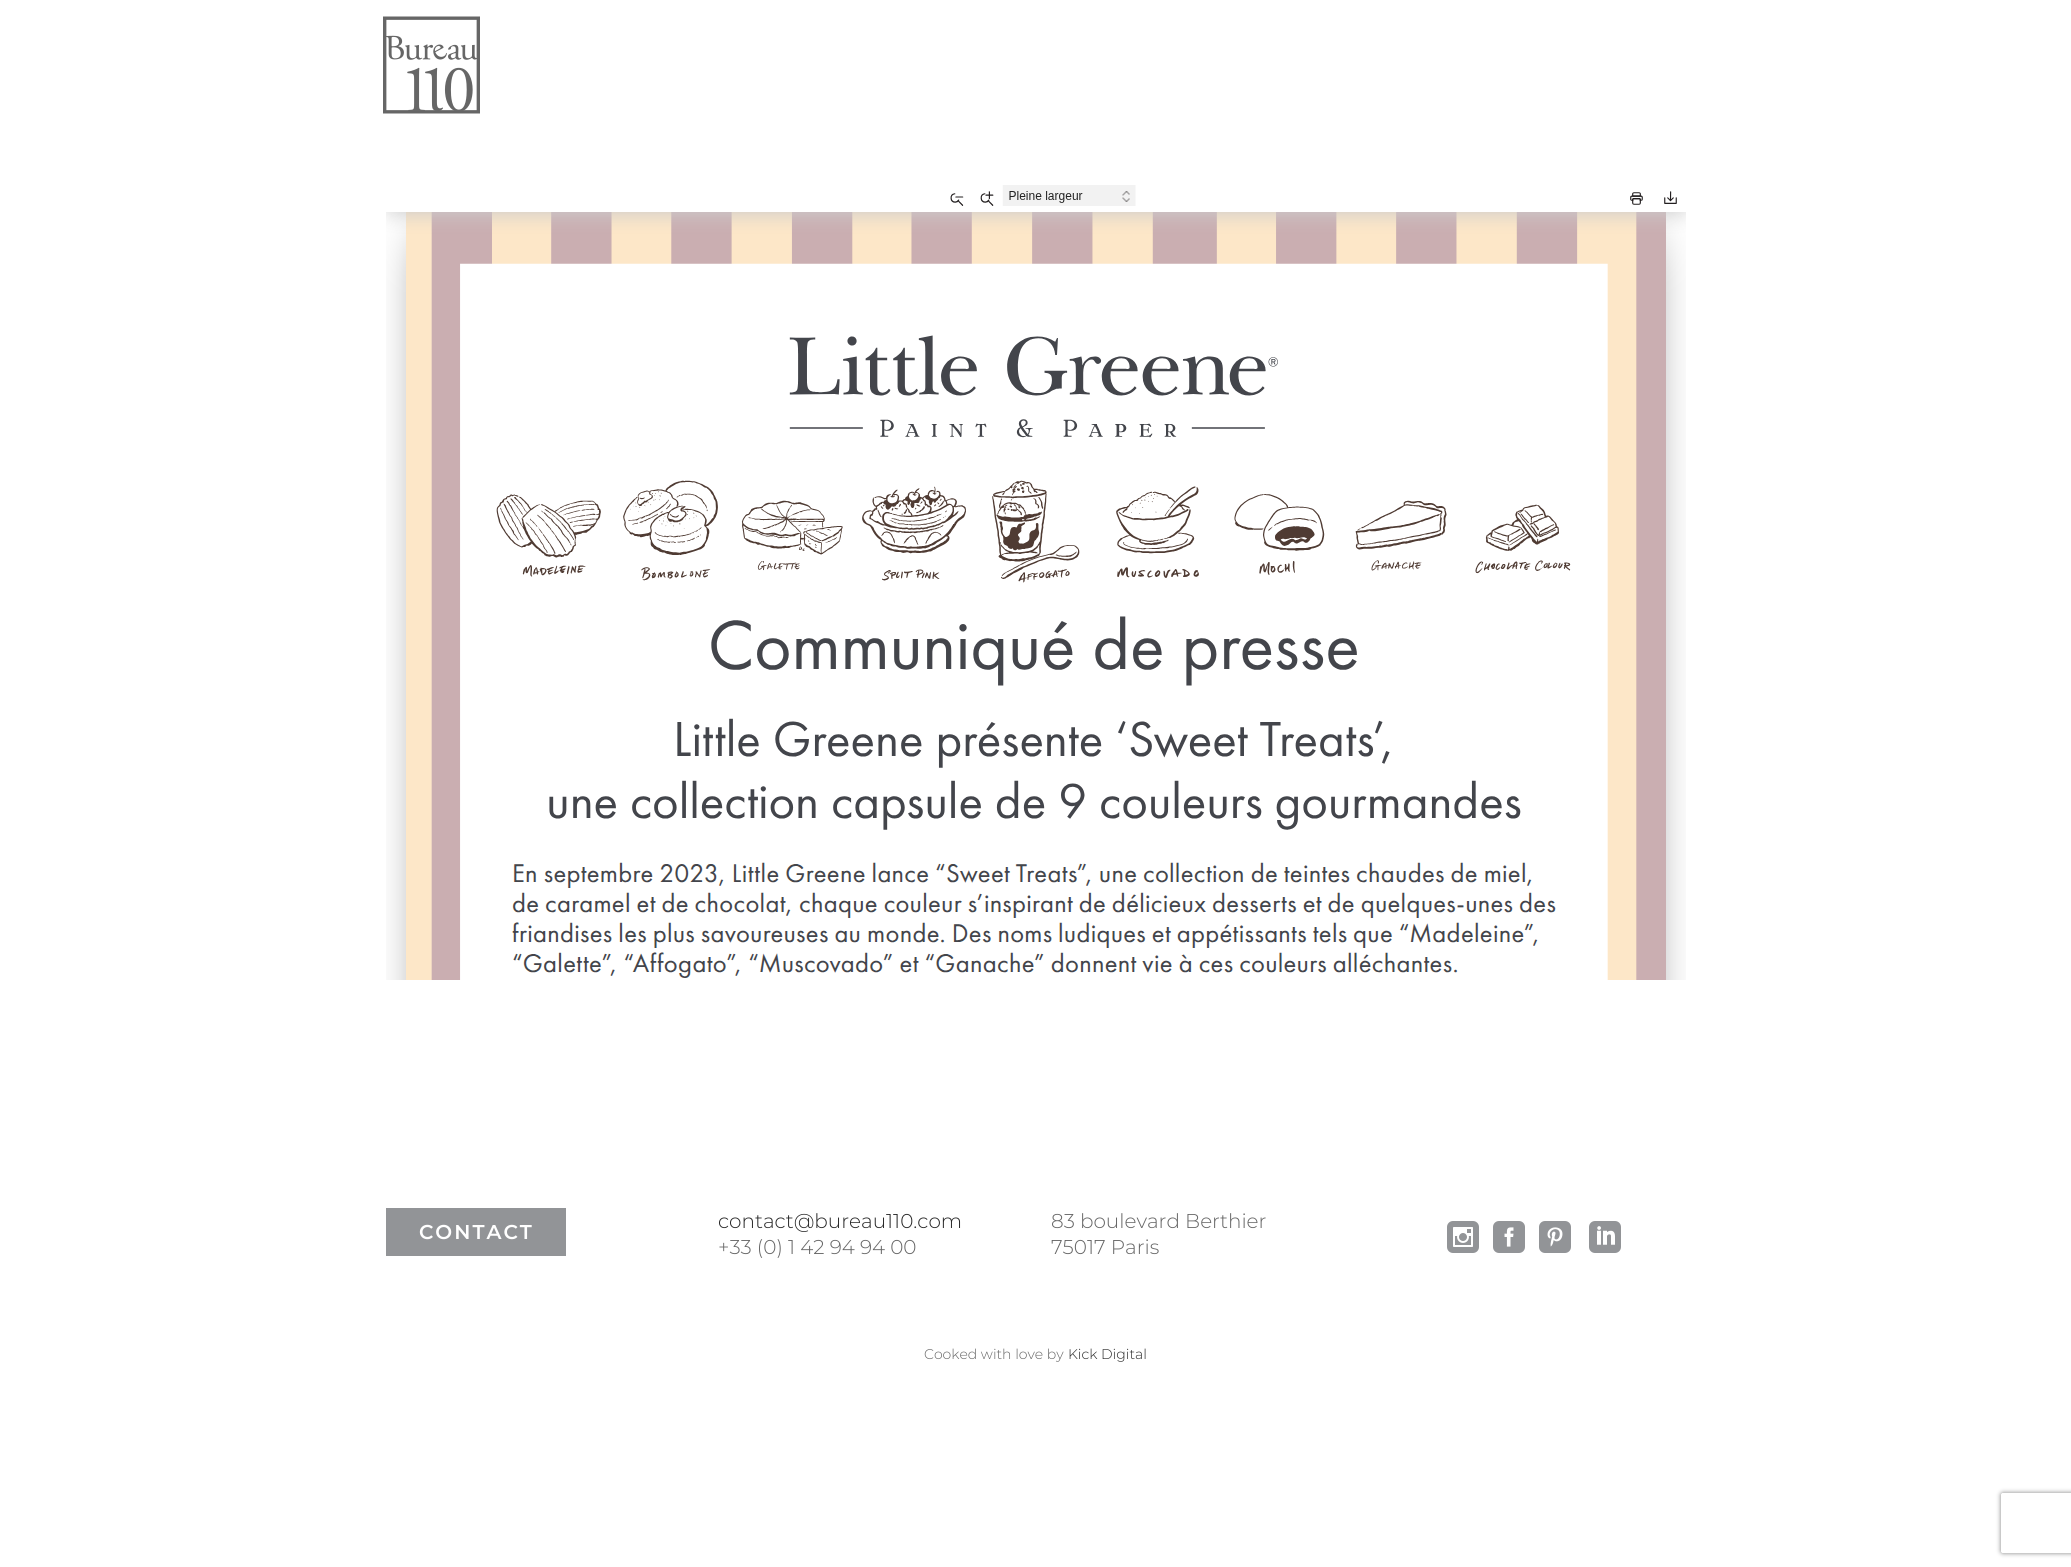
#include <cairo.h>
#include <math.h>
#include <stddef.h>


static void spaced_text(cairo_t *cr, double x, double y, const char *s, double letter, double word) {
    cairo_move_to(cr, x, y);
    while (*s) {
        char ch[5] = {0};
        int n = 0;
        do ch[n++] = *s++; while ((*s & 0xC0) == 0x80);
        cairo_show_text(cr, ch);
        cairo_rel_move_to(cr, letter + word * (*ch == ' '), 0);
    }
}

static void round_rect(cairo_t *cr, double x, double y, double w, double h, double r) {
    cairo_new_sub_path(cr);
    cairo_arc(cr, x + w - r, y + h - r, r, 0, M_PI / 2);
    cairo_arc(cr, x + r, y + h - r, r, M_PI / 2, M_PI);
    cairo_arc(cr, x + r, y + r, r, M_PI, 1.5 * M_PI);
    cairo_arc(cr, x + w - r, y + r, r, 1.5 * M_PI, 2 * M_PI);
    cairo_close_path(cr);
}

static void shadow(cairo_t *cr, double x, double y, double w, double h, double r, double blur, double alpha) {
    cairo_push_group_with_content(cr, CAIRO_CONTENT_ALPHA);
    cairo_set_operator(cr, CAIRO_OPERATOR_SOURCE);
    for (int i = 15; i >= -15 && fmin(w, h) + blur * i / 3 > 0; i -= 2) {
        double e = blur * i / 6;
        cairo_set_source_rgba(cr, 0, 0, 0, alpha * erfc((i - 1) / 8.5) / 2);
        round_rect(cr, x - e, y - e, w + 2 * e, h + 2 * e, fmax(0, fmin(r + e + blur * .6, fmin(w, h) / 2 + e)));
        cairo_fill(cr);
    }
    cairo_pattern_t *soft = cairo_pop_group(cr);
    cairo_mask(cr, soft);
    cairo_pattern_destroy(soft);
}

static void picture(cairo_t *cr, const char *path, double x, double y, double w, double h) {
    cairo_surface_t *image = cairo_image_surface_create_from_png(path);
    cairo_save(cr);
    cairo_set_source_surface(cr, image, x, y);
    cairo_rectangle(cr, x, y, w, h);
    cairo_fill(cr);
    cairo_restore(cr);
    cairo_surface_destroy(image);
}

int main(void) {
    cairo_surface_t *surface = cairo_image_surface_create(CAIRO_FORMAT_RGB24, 2071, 1567);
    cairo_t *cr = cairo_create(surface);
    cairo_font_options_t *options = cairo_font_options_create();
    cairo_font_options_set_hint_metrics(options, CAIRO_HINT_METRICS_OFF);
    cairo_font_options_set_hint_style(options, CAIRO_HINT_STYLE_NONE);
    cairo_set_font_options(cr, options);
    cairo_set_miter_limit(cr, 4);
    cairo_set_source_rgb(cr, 1, 1, 1);
    cairo_paint(cr);
    picture(cr, "img1.png", 383, 16, 97, 98);
    picture(cr, "img2.png", 386, 185, 1300, 795);
    cairo_set_source_rgb(cr, 0.573, 0.58, 0.592);
    cairo_rectangle(cr, 386, 1208, 180, 48);
    cairo_fill(cr);
    cairo_select_font_face(cr, "Montserrat SemiBold", CAIRO_FONT_SLANT_NORMAL, CAIRO_FONT_WEIGHT_NORMAL);
    cairo_set_font_size(cr, 20);
    cairo_set_source_rgb(cr, 1, 1, 1);
    spaced_text(cr, 419, 1239, "CONTACT", 2, 0);
    cairo_select_font_face(cr, "Montserrat Light", CAIRO_FONT_SLANT_NORMAL, CAIRO_FONT_WEIGHT_NORMAL);
    cairo_set_source_rgb(cr, 0.157, 0.157, 0.157);
    cairo_move_to(cr, 718, 1228);
    cairo_show_text(cr, "contact@bureau110.com");
    cairo_set_source_rgb(cr, 0.4, 0.4, 0.4);
    cairo_move_to(cr, 718, 1254);
    cairo_show_text(cr, "+33 (0) 1 42 94 94 00");
    cairo_move_to(cr, 1051, 1228);
    cairo_show_text(cr, "83 boulevard Berthier");
    cairo_move_to(cr, 1051, 1254);
    cairo_show_text(cr, "75017 Paris");
    picture(cr, "img3.png", 1447, 1221, 32, 32);
    picture(cr, "img4.png", 1493, 1221, 32, 32);
    picture(cr, "img5.png", 1539, 1221, 32, 32);
    picture(cr, "img6.png", 1589, 1221, 32, 32);
    cairo_set_font_size(cr, 14);
    cairo_move_to(cr, 924, 1359);
    cairo_show_text(cr, "Cooked with love by");
    cairo_set_source_rgb(cr, 0.157, 0.157, 0.157);
    cairo_move_to(cr, 1068, 1359);
    cairo_show_text(cr, "Kick Digital");
    cairo_save(cr);
    cairo_set_fill_rule(cr, CAIRO_FILL_RULE_EVEN_ODD);
    cairo_new_path(cr);
    cairo_move_to(cr, 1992, 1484);
    cairo_line_to(cr, 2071, 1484);
    cairo_line_to(cr, 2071, 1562);
    cairo_line_to(cr, 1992, 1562);
    cairo_close_path(cr);
    cairo_move_to(cr, 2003, 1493);
    cairo_line_to(cr, 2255, 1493);
    cairo_curve_to(cr, 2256, 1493, 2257, 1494, 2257, 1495);
    cairo_line_to(cr, 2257, 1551);
    cairo_curve_to(cr, 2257, 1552, 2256, 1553, 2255, 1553);
    cairo_line_to(cr, 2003, 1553);
    cairo_curve_to(cr, 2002, 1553, 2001, 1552, 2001, 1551);
    cairo_line_to(cr, 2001, 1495);
    cairo_curve_to(cr, 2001, 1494, 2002, 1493, 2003, 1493);
    cairo_close_path(cr);
    cairo_clip(cr);
    cairo_set_source_rgb(cr, 0.502, 0.502, 0.502);
    shadow(cr, 2001, 1493, 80, 60, 2, 2.5, 1);
    cairo_restore(cr);
    cairo_surface_write_to_png(surface, "page.png");
    cairo_font_options_destroy(options);
    cairo_destroy(cr);
    cairo_surface_destroy(surface);
    return 0;
}
